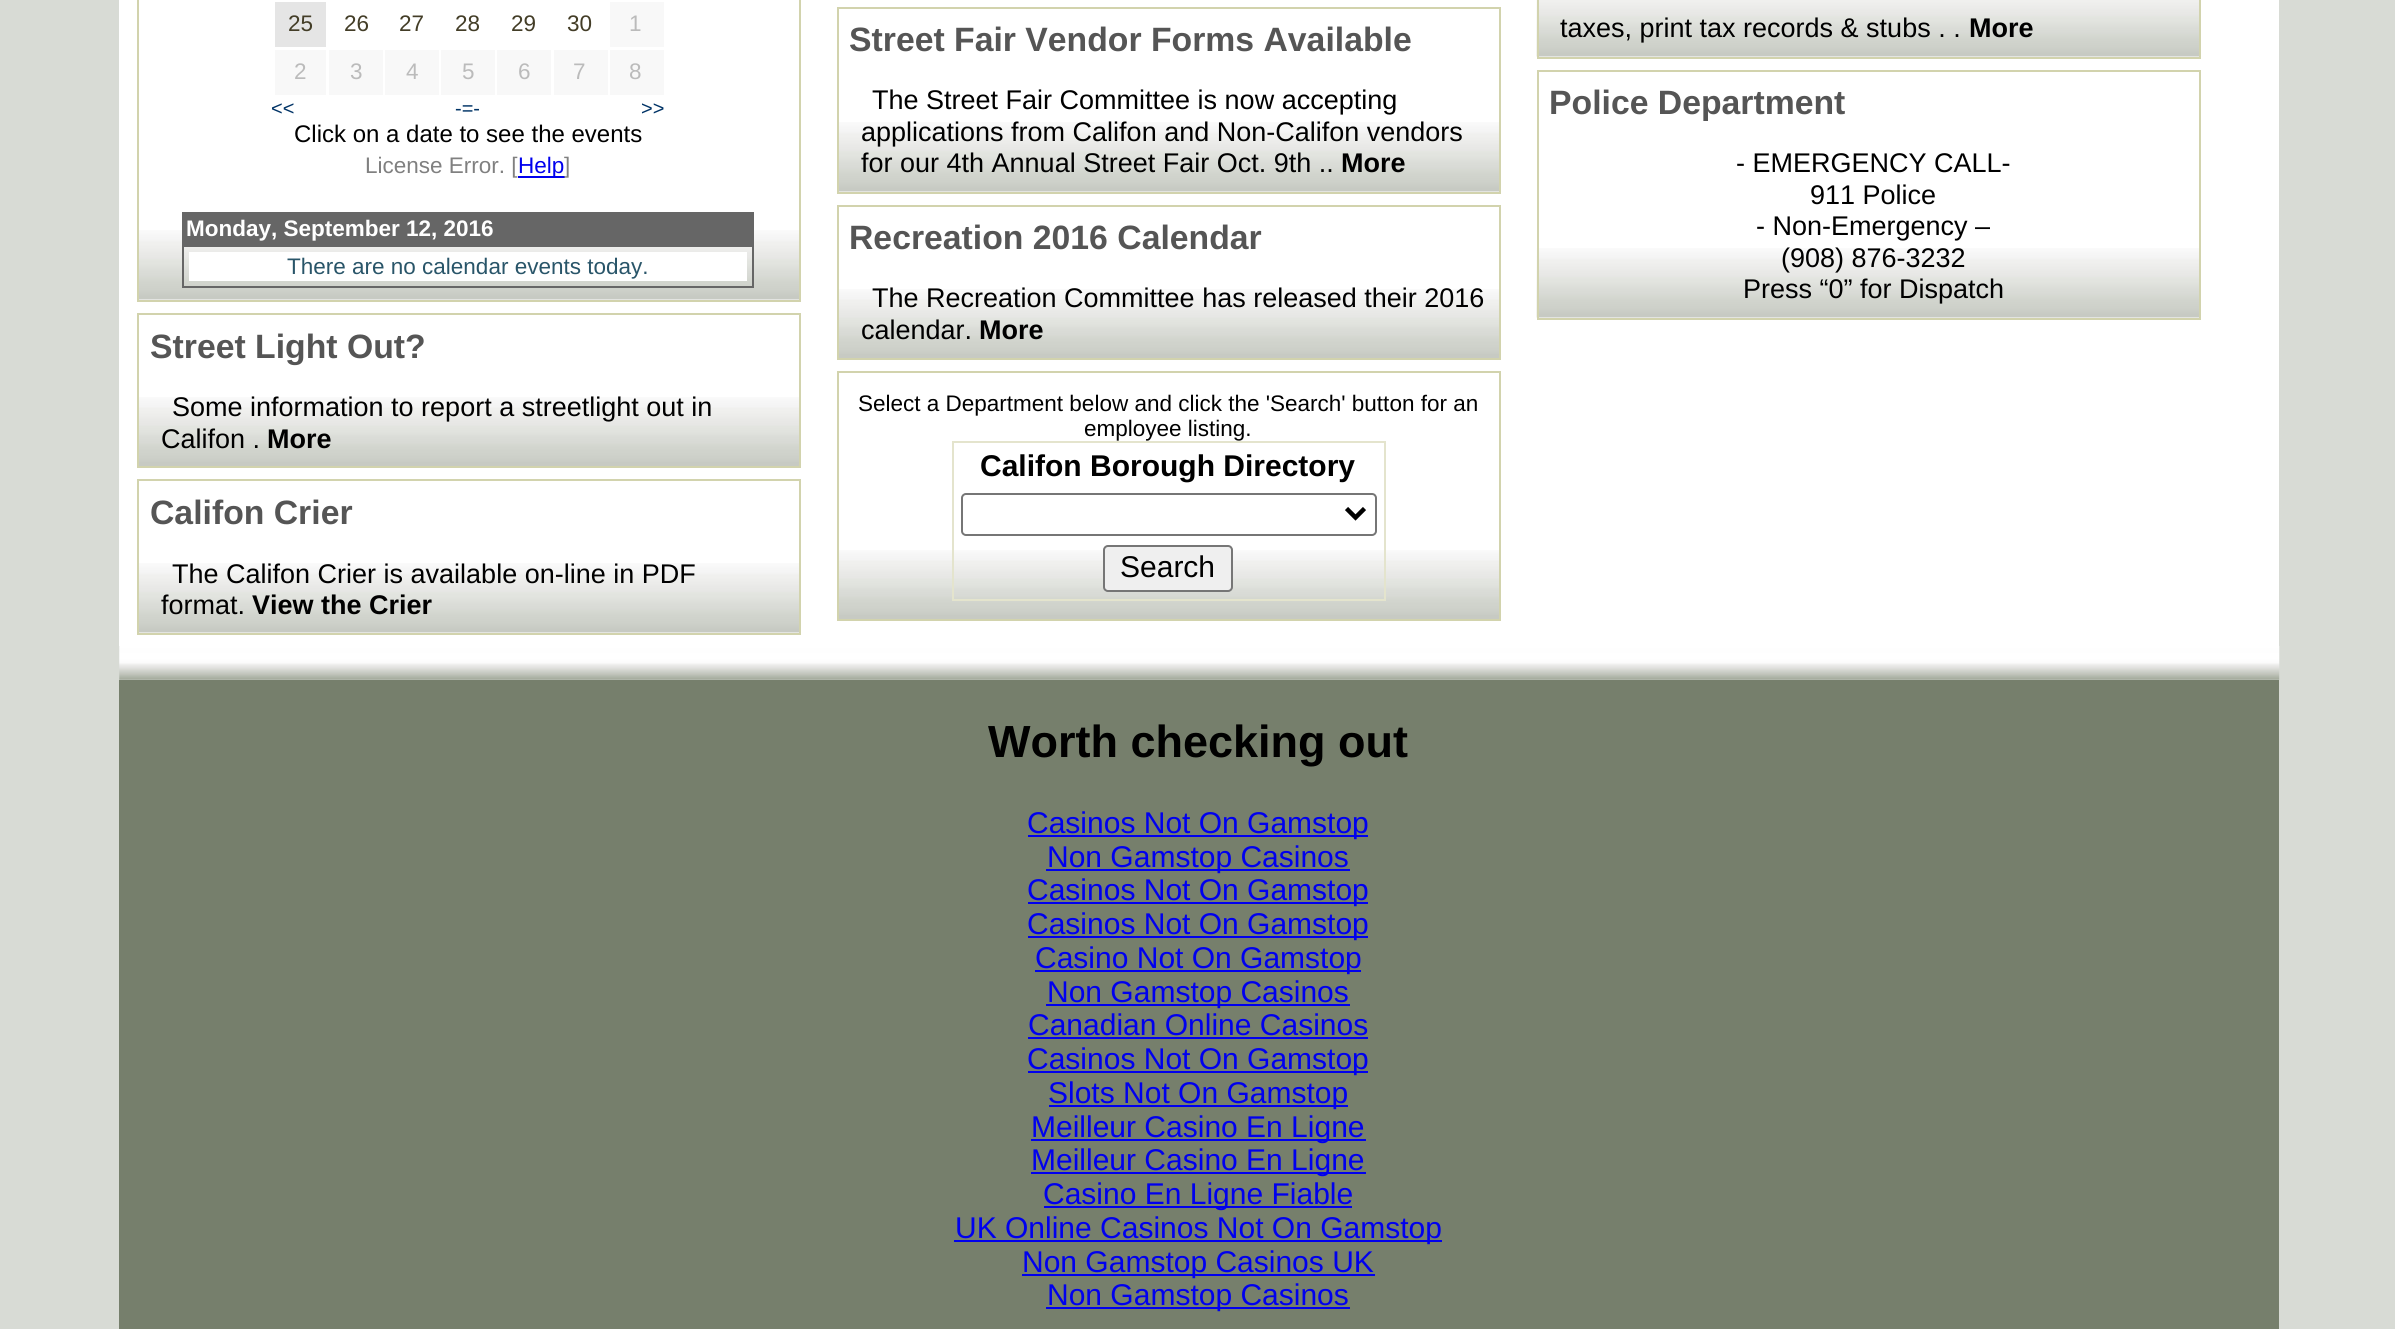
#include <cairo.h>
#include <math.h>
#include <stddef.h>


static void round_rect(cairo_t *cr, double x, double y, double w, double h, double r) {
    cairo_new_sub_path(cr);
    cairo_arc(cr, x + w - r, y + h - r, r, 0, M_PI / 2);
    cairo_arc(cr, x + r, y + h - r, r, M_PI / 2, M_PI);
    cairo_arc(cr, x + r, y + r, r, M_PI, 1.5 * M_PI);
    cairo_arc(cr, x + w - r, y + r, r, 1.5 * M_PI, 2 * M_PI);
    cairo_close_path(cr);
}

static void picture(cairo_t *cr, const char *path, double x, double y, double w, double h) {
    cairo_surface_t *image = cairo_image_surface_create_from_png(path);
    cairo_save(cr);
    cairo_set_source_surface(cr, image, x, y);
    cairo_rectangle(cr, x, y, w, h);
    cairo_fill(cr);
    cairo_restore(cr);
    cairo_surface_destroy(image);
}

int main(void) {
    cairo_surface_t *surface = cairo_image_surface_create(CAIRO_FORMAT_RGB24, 2395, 1329);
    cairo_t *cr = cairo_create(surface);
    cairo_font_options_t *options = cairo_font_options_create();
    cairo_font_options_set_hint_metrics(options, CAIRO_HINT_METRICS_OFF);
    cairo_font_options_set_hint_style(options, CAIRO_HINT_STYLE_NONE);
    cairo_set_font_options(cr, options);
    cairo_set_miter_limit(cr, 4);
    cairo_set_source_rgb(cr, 0.847, 0.859, 0.835);
    cairo_paint(cr);
    cairo_set_source_rgb(cr, 1, 1, 1);
    cairo_rectangle(cr, 119, 0, 2160, 646);
    cairo_fill(cr);
    picture(cr, "img1.png", 139, 230, 660, 70);
    cairo_rectangle(cr, 138, -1, 662, 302);
    cairo_set_source_rgb(cr, 0.824, 0.827, 0.678);
    cairo_stroke(cr);
    cairo_set_source_rgb(cr, 0.898, 0.898, 0.898);
    cairo_rectangle(cr, 275, 2, 51, 45);
    cairo_fill(cr);
    cairo_select_font_face(cr, "Liberation Sans", CAIRO_FONT_SLANT_NORMAL, CAIRO_FONT_WEIGHT_NORMAL);
    cairo_set_font_size(cr, 22.5);
    cairo_set_source_rgb(cr, 0.263, 0.239, 0.153);
    cairo_move_to(cr, 288, 31);
    cairo_show_text(cr, "25");
    cairo_move_to(cr, 344, 31);
    cairo_show_text(cr, "26");
    cairo_move_to(cr, 399, 31);
    cairo_show_text(cr, "27");
    cairo_move_to(cr, 455, 31);
    cairo_show_text(cr, "28");
    cairo_move_to(cr, 511, 31);
    cairo_show_text(cr, "29");
    cairo_move_to(cr, 567, 31);
    cairo_show_text(cr, "30");
    cairo_set_source_rgb(cr, 0.969, 0.969, 0.969);
    cairo_rectangle(cr, 610, 2, 54, 45);
    cairo_fill(cr);
    cairo_set_source_rgb(cr, 0.733, 0.733, 0.733);
    cairo_move_to(cr, 629, 31);
    cairo_show_text(cr, "1");
    cairo_set_source_rgb(cr, 0.969, 0.969, 0.969);
    cairo_rectangle(cr, 275, 50, 51, 45);
    cairo_fill(cr);
    cairo_set_source_rgb(cr, 0.733, 0.733, 0.733);
    cairo_move_to(cr, 294, 79);
    cairo_show_text(cr, "2");
    cairo_set_source_rgb(cr, 0.969, 0.969, 0.969);
    cairo_rectangle(cr, 329, 50, 54, 45);
    cairo_fill(cr);
    cairo_set_source_rgb(cr, 0.733, 0.733, 0.733);
    cairo_move_to(cr, 350, 79);
    cairo_show_text(cr, "3");
    cairo_set_source_rgb(cr, 0.969, 0.969, 0.969);
    cairo_rectangle(cr, 385, 50, 54, 45);
    cairo_fill(cr);
    cairo_set_source_rgb(cr, 0.733, 0.733, 0.733);
    cairo_move_to(cr, 406, 79);
    cairo_show_text(cr, "4");
    cairo_set_source_rgb(cr, 0.969, 0.969, 0.969);
    cairo_rectangle(cr, 441, 50, 54, 45);
    cairo_fill(cr);
    cairo_set_source_rgb(cr, 0.733, 0.733, 0.733);
    cairo_move_to(cr, 462, 79);
    cairo_show_text(cr, "5");
    cairo_set_source_rgb(cr, 0.969, 0.969, 0.969);
    cairo_rectangle(cr, 497, 50, 54, 45);
    cairo_fill(cr);
    cairo_set_source_rgb(cr, 0.733, 0.733, 0.733);
    cairo_move_to(cr, 518, 79);
    cairo_show_text(cr, "6");
    cairo_set_source_rgb(cr, 0.969, 0.969, 0.969);
    cairo_rectangle(cr, 554, 50, 54, 45);
    cairo_fill(cr);
    cairo_set_source_rgb(cr, 0.733, 0.733, 0.733);
    cairo_move_to(cr, 573, 79);
    cairo_show_text(cr, "7");
    cairo_set_source_rgb(cr, 0.969, 0.969, 0.969);
    cairo_rectangle(cr, 610, 50, 54, 45);
    cairo_fill(cr);
    cairo_set_source_rgb(cr, 0.733, 0.733, 0.733);
    cairo_move_to(cr, 629, 79);
    cairo_show_text(cr, "8");
    cairo_set_font_size(cr, 20);
    cairo_set_source_rgb(cr, 0, 0.2, 0.4);
    cairo_move_to(cr, 271, 115);
    cairo_show_text(cr, "<<");
    cairo_move_to(cr, 455, 115);
    cairo_show_text(cr, "-=-");
    cairo_move_to(cr, 641, 115);
    cairo_show_text(cr, ">>");
    cairo_set_font_size(cr, 24);
    cairo_set_source_rgb(cr, 0, 0, 0);
    cairo_move_to(cr, 294, 142);
    cairo_show_text(cr, "Click on a date to see the events");
    cairo_set_font_size(cr, 22.5);
    cairo_set_source_rgb(cr, 0.502, 0.502, 0.502);
    cairo_move_to(cr, 365, 173);
    cairo_show_text(cr, "License Error. [");
    cairo_set_source_rgb(cr, 0, 0, 0.933);
    cairo_rectangle(cr, 518, 176, 47, 2);
    cairo_fill(cr);
    cairo_move_to(cr, 518, 173);
    cairo_show_text(cr, "Help");
    cairo_set_source_rgb(cr, 0.502, 0.502, 0.502);
    cairo_move_to(cr, 564, 173);
    cairo_show_text(cr, "]");
    cairo_set_source_rgb(cr, 0.4, 0.4, 0.4);
    cairo_rectangle(cr, 182, 212, 572, 33);
    cairo_fill(cr);
    cairo_select_font_face(cr, "Liberation Sans", CAIRO_FONT_SLANT_NORMAL, CAIRO_FONT_WEIGHT_BOLD);
    cairo_set_source_rgb(cr, 1, 1, 1);
    cairo_move_to(cr, 186, 236);
    cairo_show_text(cr, "Monday, September 12, 2016");
    cairo_rectangle(cr, 183, 246, 570, 41);
    cairo_set_source_rgb(cr, 0.4, 0.4, 0.4);
    cairo_stroke(cr);
    cairo_set_source_rgb(cr, 1, 1, 1);
    cairo_rectangle(cr, 189, 252, 558, 29);
    cairo_fill(cr);
    cairo_select_font_face(cr, "Liberation Sans", CAIRO_FONT_SLANT_NORMAL, CAIRO_FONT_WEIGHT_NORMAL);
    cairo_set_source_rgb(cr, 0.161, 0.333, 0.412);
    cairo_move_to(cr, 287, 274);
    cairo_show_text(cr, "There are no calendar events today.");
    picture(cr, "img2.png", 139, 397, 660, 69);
    cairo_rectangle(cr, 138, 314, 662, 153);
    cairo_set_source_rgb(cr, 0.824, 0.827, 0.678);
    cairo_stroke(cr);
    cairo_select_font_face(cr, "Liberation Sans", CAIRO_FONT_SLANT_NORMAL, CAIRO_FONT_WEIGHT_BOLD);
    cairo_set_font_size(cr, 33.75);
    cairo_set_source_rgb(cr, 0.333, 0.333, 0.333);
    cairo_move_to(cr, 150, 358);
    cairo_show_text(cr, "Street Light Out?");
    cairo_select_font_face(cr, "Liberation Sans", CAIRO_FONT_SLANT_NORMAL, CAIRO_FONT_WEIGHT_NORMAL);
    cairo_set_font_size(cr, 27);
    cairo_set_source_rgb(cr, 0, 0, 0);
    cairo_move_to(cr, 172, 416);
    cairo_show_text(cr, "Some information to report a streetlight out in");
    cairo_move_to(cr, 161, 448);
    cairo_show_text(cr, "Califon .");
    cairo_select_font_face(cr, "Liberation Sans", CAIRO_FONT_SLANT_NORMAL, CAIRO_FONT_WEIGHT_BOLD);
    cairo_move_to(cr, 267, 448);
    cairo_show_text(cr, "More");
    picture(cr, "img1.png", 139, 563, 660, 70);
    cairo_rectangle(cr, 138, 480, 662, 154);
    cairo_set_source_rgb(cr, 0.824, 0.827, 0.678);
    cairo_stroke(cr);
    cairo_set_font_size(cr, 33.75);
    cairo_set_source_rgb(cr, 0.333, 0.333, 0.333);
    cairo_move_to(cr, 150, 524);
    cairo_show_text(cr, "Califon Crier");
    cairo_select_font_face(cr, "Liberation Sans", CAIRO_FONT_SLANT_NORMAL, CAIRO_FONT_WEIGHT_NORMAL);
    cairo_set_font_size(cr, 27);
    cairo_set_source_rgb(cr, 0, 0, 0);
    cairo_move_to(cr, 172, 583);
    cairo_show_text(cr, "The Califon Crier is available on-line in PDF");
    cairo_move_to(cr, 161, 614);
    cairo_show_text(cr, "format.");
    cairo_select_font_face(cr, "Liberation Sans", CAIRO_FONT_SLANT_NORMAL, CAIRO_FONT_WEIGHT_BOLD);
    cairo_move_to(cr, 252, 614);
    cairo_show_text(cr, "View the Crier");
    picture(cr, "img1.png", 839, 122, 660, 70);
    cairo_rectangle(cr, 838, 8, 662, 185);
    cairo_set_source_rgb(cr, 0.824, 0.827, 0.678);
    cairo_stroke(cr);
    cairo_set_font_size(cr, 33.75);
    cairo_set_source_rgb(cr, 0.333, 0.333, 0.333);
    cairo_move_to(cr, 849, 51);
    cairo_show_text(cr, "Street Fair Vendor Forms Available");
    cairo_select_font_face(cr, "Liberation Sans", CAIRO_FONT_SLANT_NORMAL, CAIRO_FONT_WEIGHT_NORMAL);
    cairo_set_font_size(cr, 27);
    cairo_set_source_rgb(cr, 0, 0, 0);
    cairo_move_to(cr, 872, 109);
    cairo_show_text(cr, "The Street Fair Committee is now accepting");
    cairo_move_to(cr, 861, 141);
    cairo_show_text(cr, "applications from Califon and Non-Califon vendors");
    cairo_move_to(cr, 861, 172);
    cairo_show_text(cr, "for our 4th Annual Street Fair Oct. 9th ..");
    cairo_select_font_face(cr, "Liberation Sans", CAIRO_FONT_SLANT_NORMAL, CAIRO_FONT_WEIGHT_BOLD);
    cairo_move_to(cr, 1341, 172);
    cairo_show_text(cr, "More");
    picture(cr, "img2.png", 839, 289, 660, 69);
    cairo_rectangle(cr, 838, 206, 662, 153);
    cairo_set_source_rgb(cr, 0.824, 0.827, 0.678);
    cairo_stroke(cr);
    cairo_set_font_size(cr, 33.75);
    cairo_set_source_rgb(cr, 0.333, 0.333, 0.333);
    cairo_move_to(cr, 849, 249);
    cairo_show_text(cr, "Recreation 2016 Calendar");
    cairo_select_font_face(cr, "Liberation Sans", CAIRO_FONT_SLANT_NORMAL, CAIRO_FONT_WEIGHT_NORMAL);
    cairo_set_font_size(cr, 27);
    cairo_set_source_rgb(cr, 0, 0, 0);
    cairo_move_to(cr, 872, 307);
    cairo_show_text(cr, "The Recreation Committee has released their 2016");
    cairo_move_to(cr, 861, 339);
    cairo_show_text(cr, "calendar.");
    cairo_select_font_face(cr, "Liberation Sans", CAIRO_FONT_SLANT_NORMAL, CAIRO_FONT_WEIGHT_BOLD);
    cairo_move_to(cr, 979, 339);
    cairo_show_text(cr, "More");
    picture(cr, "img3.png", 839, 550, 660, 69);
    cairo_rectangle(cr, 838, 372, 662, 248);
    cairo_set_source_rgb(cr, 0.824, 0.827, 0.678);
    cairo_stroke(cr);
    cairo_select_font_face(cr, "Liberation Sans", CAIRO_FONT_SLANT_NORMAL, CAIRO_FONT_WEIGHT_NORMAL);
    cairo_set_font_size(cr, 22.5);
    cairo_set_source_rgb(cr, 0, 0, 0);
    cairo_move_to(cr, 858, 411);
    cairo_show_text(cr, "Select a Department below and click the 'Search' button for an");
    cairo_move_to(cr, 1084, 436);
    cairo_show_text(cr, "employee listing.");
    cairo_rectangle(cr, 953, 442, 432, 158);
    cairo_set_source_rgb(cr, 0.894, 0.894, 0.804);
    cairo_stroke(cr);
    cairo_select_font_face(cr, "Liberation Sans", CAIRO_FONT_SLANT_NORMAL, CAIRO_FONT_WEIGHT_BOLD);
    cairo_set_font_size(cr, 30);
    cairo_set_source_rgb(cr, 0, 0, 0);
    cairo_move_to(cr, 980, 476);
    cairo_show_text(cr, "Califon Borough Directory");
    round_rect(cr, 962, 494, 414, 41, 4);
    cairo_set_source_rgb(cr, 0.463, 0.463, 0.463);
    cairo_stroke(cr);
    cairo_new_path(cr);
    cairo_move_to(cr, 1346.5, 508.5);
    cairo_line_to(cr, 1355.5, 517.5);
    cairo_line_to(cr, 1364.5, 508.5);
    cairo_set_source_rgb(cr, 0, 0, 0);
    cairo_set_line_width(cr, 4.5);
    cairo_stroke(cr);
    cairo_set_source_rgb(cr, 0.937, 0.937, 0.937);
    round_rect(cr, 1104, 546, 128, 45, 4);
    cairo_fill_preserve(cr);
    cairo_set_source_rgb(cr, 0.463, 0.463, 0.463);
    cairo_set_line_width(cr, 2);
    cairo_stroke(cr);
    cairo_select_font_face(cr, "Liberation Sans", CAIRO_FONT_SLANT_NORMAL, CAIRO_FONT_WEIGHT_NORMAL);
    cairo_set_source_rgb(cr, 0, 0, 0);
    cairo_move_to(cr, 1120, 577);
    cairo_show_text(cr, "Search");
    picture(cr, "img4.png", 1536, 0, 663, 57);
    cairo_rectangle(cr, 1538, -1, 662, 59);
    cairo_set_source_rgb(cr, 0.824, 0.827, 0.678);
    cairo_stroke(cr);
    cairo_set_font_size(cr, 27);
    cairo_set_source_rgb(cr, 0, 0, 0);
    cairo_move_to(cr, 1560, 37);
    cairo_show_text(cr, "taxes, print tax records & stubs . .");
    cairo_select_font_face(cr, "Liberation Sans", CAIRO_FONT_SLANT_NORMAL, CAIRO_FONT_WEIGHT_BOLD);
    cairo_move_to(cr, 1969, 37);
    cairo_show_text(cr, "More");
    picture(cr, "img5.png", 1536, 248, 663, 70);
    cairo_rectangle(cr, 1538, 71, 662, 248);
    cairo_set_source_rgb(cr, 0.824, 0.827, 0.678);
    cairo_stroke(cr);
    cairo_set_font_size(cr, 33.75);
    cairo_set_source_rgb(cr, 0.333, 0.333, 0.333);
    cairo_move_to(cr, 1549, 114);
    cairo_show_text(cr, "Police Department");
    cairo_select_font_face(cr, "Liberation Sans", CAIRO_FONT_SLANT_NORMAL, CAIRO_FONT_WEIGHT_NORMAL);
    cairo_set_font_size(cr, 27);
    cairo_set_source_rgb(cr, 0, 0, 0);
    cairo_move_to(cr, 1736, 172);
    cairo_show_text(cr, "- EMERGENCY CALL-");
    cairo_move_to(cr, 1810, 204);
    cairo_show_text(cr, "911 Police");
    cairo_move_to(cr, 1756, 235);
    cairo_show_text(cr, "- Non-Emergency –");
    cairo_move_to(cr, 1781, 267);
    cairo_show_text(cr, "(908) 876-3232");
    cairo_move_to(cr, 1743, 298);
    cairo_show_text(cr, "Press “0” for Dispatch");
    picture(cr, "img6.png", 119, 646, 2161, 34);
    cairo_set_source_rgb(cr, 0.463, 0.498, 0.424);
    cairo_rectangle(cr, 119, 680, 2160, 649);
    cairo_fill(cr);
    cairo_select_font_face(cr, "Liberation Sans", CAIRO_FONT_SLANT_NORMAL, CAIRO_FONT_WEIGHT_BOLD);
    cairo_set_font_size(cr, 45);
    cairo_set_source_rgb(cr, 0, 0, 0);
    cairo_move_to(cr, 988, 757);
    cairo_show_text(cr, "Worth checking out");
    cairo_set_source_rgb(cr, 0, 0, 0.933);
    cairo_rectangle(cr, 1028, 835, 340, 2);
    cairo_fill(cr);
    cairo_select_font_face(cr, "Liberation Sans", CAIRO_FONT_SLANT_NORMAL, CAIRO_FONT_WEIGHT_NORMAL);
    cairo_set_font_size(cr, 30);
    cairo_move_to(cr, 1027, 833);
    cairo_show_text(cr, "Casinos Not On Gamstop");
    cairo_rectangle(cr, 1046, 869, 304, 2);
    cairo_fill(cr);
    cairo_move_to(cr, 1047, 867);
    cairo_show_text(cr, "Non Gamstop Casinos");
    cairo_rectangle(cr, 1028, 902, 340, 2);
    cairo_fill(cr);
    cairo_move_to(cr, 1027, 900);
    cairo_show_text(cr, "Casinos Not On Gamstop");
    cairo_rectangle(cr, 1028, 936, 340, 2);
    cairo_fill(cr);
    cairo_move_to(cr, 1027, 934);
    cairo_show_text(cr, "Casinos Not On Gamstop");
    cairo_rectangle(cr, 1035, 970, 326, 2);
    cairo_fill(cr);
    cairo_move_to(cr, 1035, 968);
    cairo_show_text(cr, "Casino Not On Gamstop");
    cairo_rectangle(cr, 1046, 1004, 304, 2);
    cairo_fill(cr);
    cairo_move_to(cr, 1047, 1002);
    cairo_show_text(cr, "Non Gamstop Casinos");
    cairo_move_to(cr, 1028, 1035);
    cairo_show_text(cr, "Canadian Online Casinos");
    cairo_rectangle(cr, 1028, 1037, 340, 2);
    cairo_fill(cr);
    cairo_rectangle(cr, 1028, 1071, 340, 2);
    cairo_fill(cr);
    cairo_move_to(cr, 1027, 1069);
    cairo_show_text(cr, "Casinos Not On Gamstop");
    cairo_rectangle(cr, 1049, 1105, 299, 2);
    cairo_fill(cr);
    cairo_move_to(cr, 1048, 1103);
    cairo_show_text(cr, "Slots Not On Gamstop");
    cairo_rectangle(cr, 1031, 1139, 335, 2);
    cairo_fill(cr);
    cairo_move_to(cr, 1031, 1137);
    cairo_show_text(cr, "Meilleur Casino En Ligne");
    cairo_rectangle(cr, 1031, 1172, 335, 2);
    cairo_fill(cr);
    cairo_move_to(cr, 1031, 1170);
    cairo_show_text(cr, "Meilleur Casino En Ligne");
    cairo_rectangle(cr, 1044, 1206, 308, 2);
    cairo_fill(cr);
    cairo_move_to(cr, 1043, 1204);
    cairo_show_text(cr, "Casino En Ligne Fiable");
    cairo_rectangle(cr, 954, 1240, 488, 2);
    cairo_fill(cr);
    cairo_move_to(cr, 955, 1238);
    cairo_show_text(cr, "UK Online Casinos Not On Gamstop");
    cairo_rectangle(cr, 1022, 1274, 353, 2);
    cairo_fill(cr);
    cairo_move_to(cr, 1022, 1272);
    cairo_show_text(cr, "Non Gamstop Casinos UK");
    cairo_rectangle(cr, 1046, 1307, 304, 2);
    cairo_fill(cr);
    cairo_move_to(cr, 1047, 1305);
    cairo_show_text(cr, "Non Gamstop Casinos");
    cairo_surface_write_to_png(surface, "page.png");
    cairo_font_options_destroy(options);
    cairo_destroy(cr);
    cairo_surface_destroy(surface);
    return 0;
}
